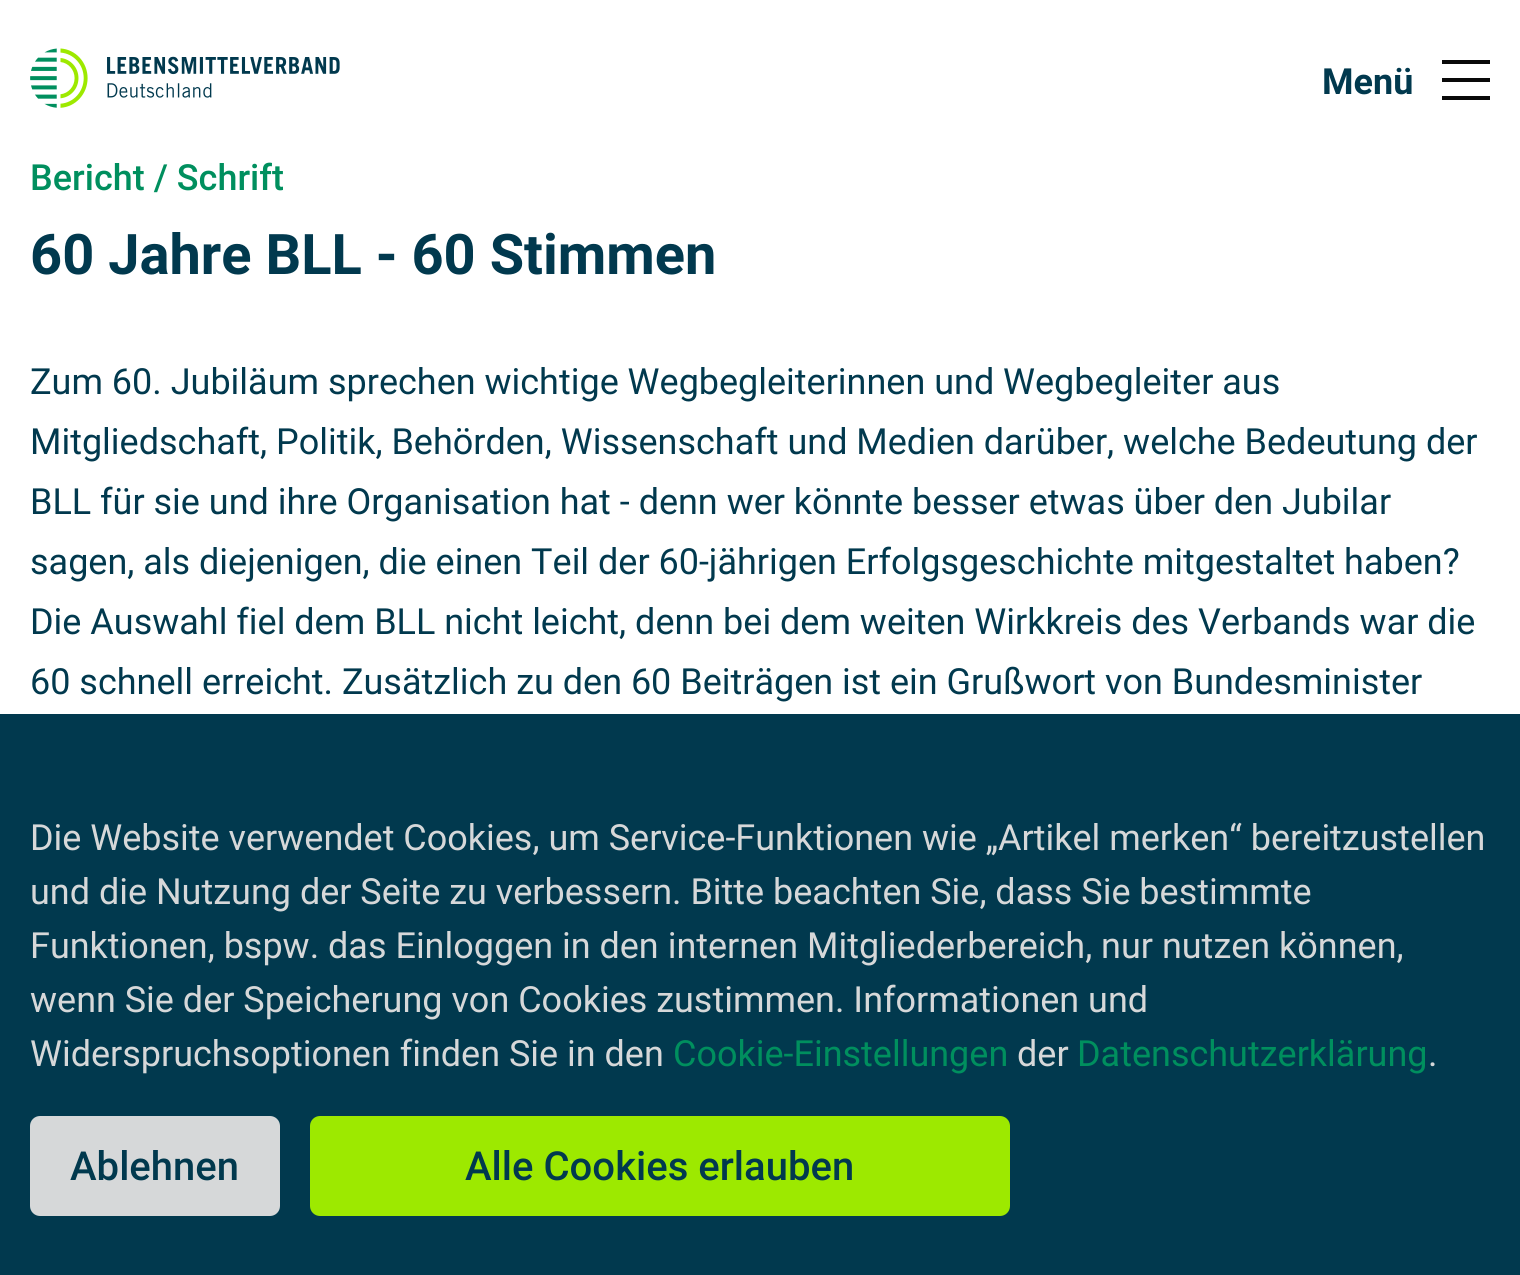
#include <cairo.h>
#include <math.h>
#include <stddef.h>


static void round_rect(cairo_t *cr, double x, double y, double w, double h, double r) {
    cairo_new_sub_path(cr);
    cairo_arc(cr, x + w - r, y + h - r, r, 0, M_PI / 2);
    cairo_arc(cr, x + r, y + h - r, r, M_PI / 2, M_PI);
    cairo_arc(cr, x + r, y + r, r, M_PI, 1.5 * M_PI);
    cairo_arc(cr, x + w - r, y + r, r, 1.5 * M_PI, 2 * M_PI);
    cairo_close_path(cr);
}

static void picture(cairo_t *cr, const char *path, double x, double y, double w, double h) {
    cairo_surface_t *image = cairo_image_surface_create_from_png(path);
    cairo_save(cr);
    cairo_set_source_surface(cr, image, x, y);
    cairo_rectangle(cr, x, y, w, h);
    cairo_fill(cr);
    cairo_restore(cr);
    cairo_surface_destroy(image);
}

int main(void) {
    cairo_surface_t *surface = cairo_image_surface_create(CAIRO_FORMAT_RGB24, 1520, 1275);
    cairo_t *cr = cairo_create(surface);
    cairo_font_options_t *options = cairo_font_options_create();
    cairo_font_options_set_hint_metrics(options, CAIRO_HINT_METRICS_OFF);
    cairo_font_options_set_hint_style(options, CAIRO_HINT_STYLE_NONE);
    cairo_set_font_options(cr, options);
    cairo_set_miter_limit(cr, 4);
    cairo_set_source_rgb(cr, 1, 1, 1);
    cairo_paint(cr);
    picture(cr, "img1.png", 30, 48, 310, 60);
    cairo_select_font_face(cr, "Roboto", CAIRO_FONT_SLANT_NORMAL, CAIRO_FONT_WEIGHT_BOLD);
    cairo_set_font_size(cr, 36);
    cairo_set_source_rgb(cr, 0.004, 0.224, 0.306);
    cairo_move_to(cr, 1322, 94);
    cairo_show_text(cr, "Menü");
    cairo_set_source_rgb(cr, 0.039, 0.039, 0.039);
    cairo_rectangle(cr, 1442, 60, 48, 4);
    cairo_fill(cr);
    cairo_rectangle(cr, 1442, 78, 48, 4);
    cairo_fill(cr);
    cairo_rectangle(cr, 1442, 96, 48, 4);
    cairo_fill(cr);
    cairo_select_font_face(cr, "Roboto Medium", CAIRO_FONT_SLANT_NORMAL, CAIRO_FONT_WEIGHT_NORMAL);
    cairo_set_source_rgb(cr, 0, 0.561, 0.369);
    cairo_move_to(cr, 30, 190);
    cairo_show_text(cr, "Bericht / Schrift");
    cairo_select_font_face(cr, "Roboto", CAIRO_FONT_SLANT_NORMAL, CAIRO_FONT_WEIGHT_BOLD);
    cairo_set_font_size(cr, 56);
    cairo_set_source_rgb(cr, 0.004, 0.224, 0.306);
    cairo_move_to(cr, 30, 274);
    cairo_show_text(cr, "60 Jahre BLL - 60 Stimmen");
    cairo_select_font_face(cr, "Roboto", CAIRO_FONT_SLANT_NORMAL, CAIRO_FONT_WEIGHT_NORMAL);
    cairo_set_font_size(cr, 36);
    cairo_move_to(cr, 30, 394);
    cairo_show_text(cr, "Zum 60. Jubiläum sprechen wichtige Wegbegleiterinnen und Wegbegleiter aus");
    cairo_move_to(cr, 30, 454);
    cairo_show_text(cr, "Mitgliedschaft, Politik, Behörden, Wissenschaft und Medien darüber, welche Bedeutung der");
    cairo_move_to(cr, 30, 514);
    cairo_show_text(cr, "BLL für sie und ihre Organisation hat - denn wer könnte besser etwas über den Jubilar");
    cairo_move_to(cr, 30, 574);
    cairo_show_text(cr, "sagen, als diejenigen, die einen Teil der 60-jährigen Erfolgsgeschichte mitgestaltet haben?");
    cairo_move_to(cr, 30, 634);
    cairo_show_text(cr, "Die Auswahl fiel dem BLL nicht leicht, denn bei dem weiten Wirkkreis des Verbands war die");
    cairo_move_to(cr, 30, 694);
    cairo_show_text(cr, "60 schnell erreicht. Zusätzlich zu den 60 Beiträgen ist ein Grußwort von Bundesminister");
    cairo_rectangle(cr, 0, 714, 1520, 561);
    cairo_fill(cr);
    cairo_set_source_rgb(cr, 0.839, 0.847, 0.851);
    cairo_move_to(cr, 30, 850);
    cairo_show_text(cr, "Die Website verwendet Cookies, um Service-Funktionen wie „Artikel merken“ bereitzustellen");
    cairo_move_to(cr, 30, 904);
    cairo_show_text(cr, "und die Nutzung der Seite zu verbessern. Bitte beachten Sie, dass Sie bestimmte");
    cairo_move_to(cr, 30, 958);
    cairo_show_text(cr, "Funktionen, bspw. das Einloggen in den internen Mitgliederbereich, nur nutzen können,");
    cairo_move_to(cr, 30, 1012);
    cairo_show_text(cr, "wenn Sie der Speicherung von Cookies zustimmen. Informationen und");
    cairo_move_to(cr, 30, 1066);
    cairo_show_text(cr, "Widerspruchsoptionen finden Sie in den");
    cairo_set_source_rgb(cr, 0, 0.561, 0.369);
    cairo_move_to(cr, 673, 1066);
    cairo_show_text(cr, "Cookie-Einstellungen");
    cairo_set_source_rgb(cr, 0.839, 0.847, 0.851);
    cairo_move_to(cr, 1017, 1066);
    cairo_show_text(cr, "der");
    cairo_set_source_rgb(cr, 0, 0.561, 0.369);
    cairo_move_to(cr, 1077, 1066);
    cairo_show_text(cr, "Datenschutzerklärung");
    cairo_set_source_rgb(cr, 0.839, 0.847, 0.851);
    cairo_move_to(cr, 1428, 1066);
    cairo_show_text(cr, ".");
    round_rect(cr, 30, 1116, 250, 100, 10);
    cairo_fill(cr);
    cairo_select_font_face(cr, "Roboto Medium", CAIRO_FONT_SLANT_NORMAL, CAIRO_FONT_WEIGHT_NORMAL);
    cairo_set_font_size(cr, 40);
    cairo_set_source_rgb(cr, 0.004, 0.224, 0.306);
    cairo_move_to(cr, 70, 1180);
    cairo_show_text(cr, "Ablehnen");
    cairo_set_source_rgb(cr, 0.616, 0.914, 0);
    round_rect(cr, 310, 1116, 700, 100, 10);
    cairo_fill(cr);
    cairo_set_source_rgb(cr, 0.004, 0.224, 0.306);
    cairo_move_to(cr, 465, 1180);
    cairo_show_text(cr, "Alle Cookies erlauben");
    cairo_surface_write_to_png(surface, "page.png");
    cairo_font_options_destroy(options);
    cairo_destroy(cr);
    cairo_surface_destroy(surface);
    return 0;
}
